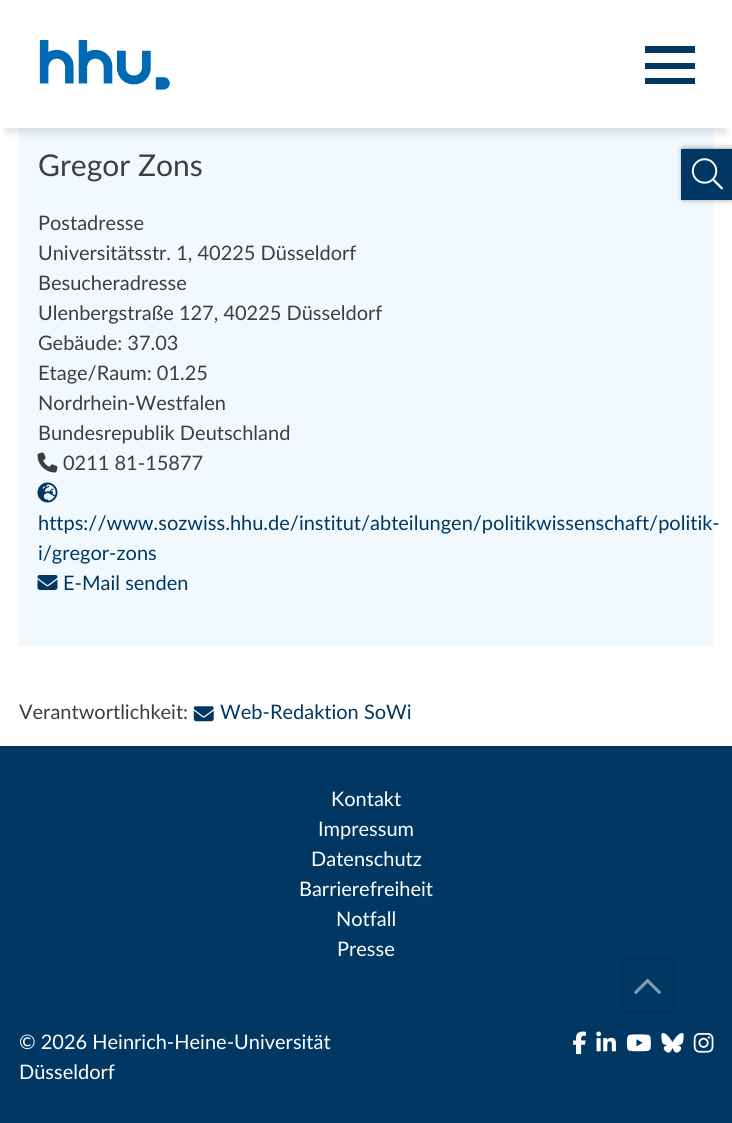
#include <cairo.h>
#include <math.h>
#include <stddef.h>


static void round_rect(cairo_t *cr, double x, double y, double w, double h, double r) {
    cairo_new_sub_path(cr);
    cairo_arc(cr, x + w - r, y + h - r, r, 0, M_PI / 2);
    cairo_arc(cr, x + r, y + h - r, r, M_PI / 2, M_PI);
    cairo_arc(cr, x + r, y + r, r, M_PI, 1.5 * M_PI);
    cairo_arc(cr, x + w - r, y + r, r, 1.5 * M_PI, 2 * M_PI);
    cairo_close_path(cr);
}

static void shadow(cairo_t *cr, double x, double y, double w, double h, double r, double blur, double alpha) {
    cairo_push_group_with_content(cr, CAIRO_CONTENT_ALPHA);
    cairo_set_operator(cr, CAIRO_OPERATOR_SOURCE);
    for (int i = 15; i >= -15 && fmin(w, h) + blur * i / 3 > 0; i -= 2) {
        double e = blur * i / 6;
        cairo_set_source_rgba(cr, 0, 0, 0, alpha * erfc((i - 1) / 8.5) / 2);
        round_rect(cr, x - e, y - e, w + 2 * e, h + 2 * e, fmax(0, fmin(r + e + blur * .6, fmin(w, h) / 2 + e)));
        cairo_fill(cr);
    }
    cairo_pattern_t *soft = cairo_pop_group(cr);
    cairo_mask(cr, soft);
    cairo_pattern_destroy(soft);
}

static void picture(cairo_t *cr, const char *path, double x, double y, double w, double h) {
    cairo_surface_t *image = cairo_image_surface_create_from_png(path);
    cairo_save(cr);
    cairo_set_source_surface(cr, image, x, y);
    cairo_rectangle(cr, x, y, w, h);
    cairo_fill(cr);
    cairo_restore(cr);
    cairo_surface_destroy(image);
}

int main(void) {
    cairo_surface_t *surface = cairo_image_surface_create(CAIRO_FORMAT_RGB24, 732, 1123);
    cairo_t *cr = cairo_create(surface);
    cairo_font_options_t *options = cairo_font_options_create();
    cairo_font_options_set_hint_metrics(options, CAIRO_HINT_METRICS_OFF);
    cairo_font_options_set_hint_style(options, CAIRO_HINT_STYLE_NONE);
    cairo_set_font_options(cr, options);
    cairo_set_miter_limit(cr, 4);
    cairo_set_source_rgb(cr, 1, 1, 1);
    cairo_paint(cr);
    cairo_set_source_rgb(cr, 0.945, 0.973, 0.996);
    cairo_rectangle(cr, 19, 128, 695, 518);
    cairo_fill(cr);
    cairo_set_source_rgb(cr, 0, 0, 0);
    shadow(cr, 6, 19, 720, 115, 0, 3, 0.1);
    cairo_set_source_rgb(cr, 1, 1, 1);
    cairo_rectangle(cr, 2, 15, 728, 113);
    cairo_fill(cr);
    picture(cr, "img1.png", 39, 40, 131, 50);
    cairo_set_source_rgb(cr, 0, 0.22, 0.388);
    cairo_rectangle(cr, 645, 46, 50, 7);
    cairo_fill(cr);
    cairo_rectangle(cr, 645, 63, 50, 6);
    cairo_fill(cr);
    cairo_rectangle(cr, 645, 78, 50, 6);
    cairo_fill(cr);
    cairo_set_source_rgb(cr, 0, 0, 0);
    shadow(cr, 683, 149, 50, 50, 0, 3, 0.5);
    cairo_set_source_rgb(cr, 0, 0.22, 0.388);
    cairo_rectangle(cr, 681, 149, 51, 51);
    cairo_fill(cr);
    picture(cr, "img2.png", 691, 158, 33, 32);
    cairo_select_font_face(cr, "Lato", CAIRO_FONT_SLANT_NORMAL, CAIRO_FONT_WEIGHT_NORMAL);
    cairo_set_font_size(cr, 30);
    cairo_set_source_rgb(cr, 0.239, 0.239, 0.263);
    cairo_move_to(cr, 38, 176);
    cairo_show_text(cr, "Gregor Zons");
    cairo_set_font_size(cr, 20);
    cairo_move_to(cr, 38, 230);
    cairo_show_text(cr, "Postadresse");
    cairo_move_to(cr, 38, 260);
    cairo_show_text(cr, "Universitätsstr. 1, 40225 Düsseldorf");
    cairo_move_to(cr, 38, 290);
    cairo_show_text(cr, "Besucheradresse");
    cairo_move_to(cr, 38, 320);
    cairo_show_text(cr, "Ulenbergstraße 127, 40225 Düsseldorf");
    cairo_move_to(cr, 38, 350);
    cairo_show_text(cr, "Gebäude: 37.03");
    cairo_move_to(cr, 38, 380);
    cairo_show_text(cr, "Etage/Raum: 01.25");
    cairo_move_to(cr, 38, 410);
    cairo_show_text(cr, "Nordrhein-Westfalen");
    cairo_move_to(cr, 38, 440);
    cairo_show_text(cr, "Bundesrepublik Deutschland");
    picture(cr, "img3.png", 37, 452, 21, 21);
    cairo_move_to(cr, 63, 470);
    cairo_show_text(cr, "0211 81-15877");
    picture(cr, "img4.png", 37, 482, 21, 21);
    cairo_set_source_rgb(cr, 0, 0.22, 0.388);
    cairo_move_to(cr, 38, 530);
    cairo_show_text(cr, "https://www.sozwiss.hhu.de/institut/abteilungen/politikwissenschaft/politik-");
    cairo_move_to(cr, 38, 560);
    cairo_show_text(cr, "i/gregor-zons");
    picture(cr, "img5.png", 37, 575, 21, 15);
    cairo_move_to(cr, 63, 590);
    cairo_show_text(cr, "E-Mail senden");
    cairo_set_source_rgb(cr, 0.239, 0.239, 0.263);
    cairo_move_to(cr, 19, 719);
    cairo_show_text(cr, "Verantwortlichkeit:");
    picture(cr, "img6.png", 193, 706, 21, 16);
    cairo_set_source_rgb(cr, 0, 0.22, 0.388);
    cairo_move_to(cr, 220, 719);
    cairo_show_text(cr, "Web-Redaktion SoWi");
    cairo_rectangle(cr, 0, 746, 732, 377);
    cairo_fill(cr);
    cairo_set_source_rgb(cr, 1, 1, 1);
    cairo_move_to(cr, 331, 806);
    cairo_show_text(cr, "Kontakt");
    cairo_move_to(cr, 318, 836);
    cairo_show_text(cr, "Impressum");
    cairo_move_to(cr, 311, 866);
    cairo_show_text(cr, "Datenschutz");
    cairo_move_to(cr, 299, 896);
    cairo_show_text(cr, "Barrierefreiheit");
    cairo_move_to(cr, 336, 926);
    cairo_show_text(cr, "Notfall");
    cairo_move_to(cr, 337, 956);
    cairo_show_text(cr, "Presse");
    cairo_move_to(cr, 19, 1049);
    cairo_show_text(cr, "© 2026 Heinrich-Heine-Universität");
    cairo_move_to(cr, 19, 1079);
    cairo_show_text(cr, "Düsseldorf");
    picture(cr, "img7.png", 573, 1031, 13, 24);
    picture(cr, "img8.png", 596, 1031, 20, 21);
    picture(cr, "img9.png", 626, 1034, 25, 18);
    picture(cr, "img10.png", 661, 1033, 23, 20);
    picture(cr, "img11.png", 693, 1033, 21, 20);
    cairo_set_source_rgb(cr, 0, 0.11, 0.196);
    shadow(cr, 623, 961, 50, 50, 0, 3, 0.5);
    cairo_set_source_rgb(cr, 0, 0.22, 0.388);
    cairo_rectangle(cr, 623, 961, 50, 50);
    cairo_fill(cr);
    picture(cr, "img12.png", 634, 978, 27, 17);
    cairo_surface_write_to_png(surface, "page.png");
    cairo_font_options_destroy(options);
    cairo_destroy(cr);
    cairo_surface_destroy(surface);
    return 0;
}
